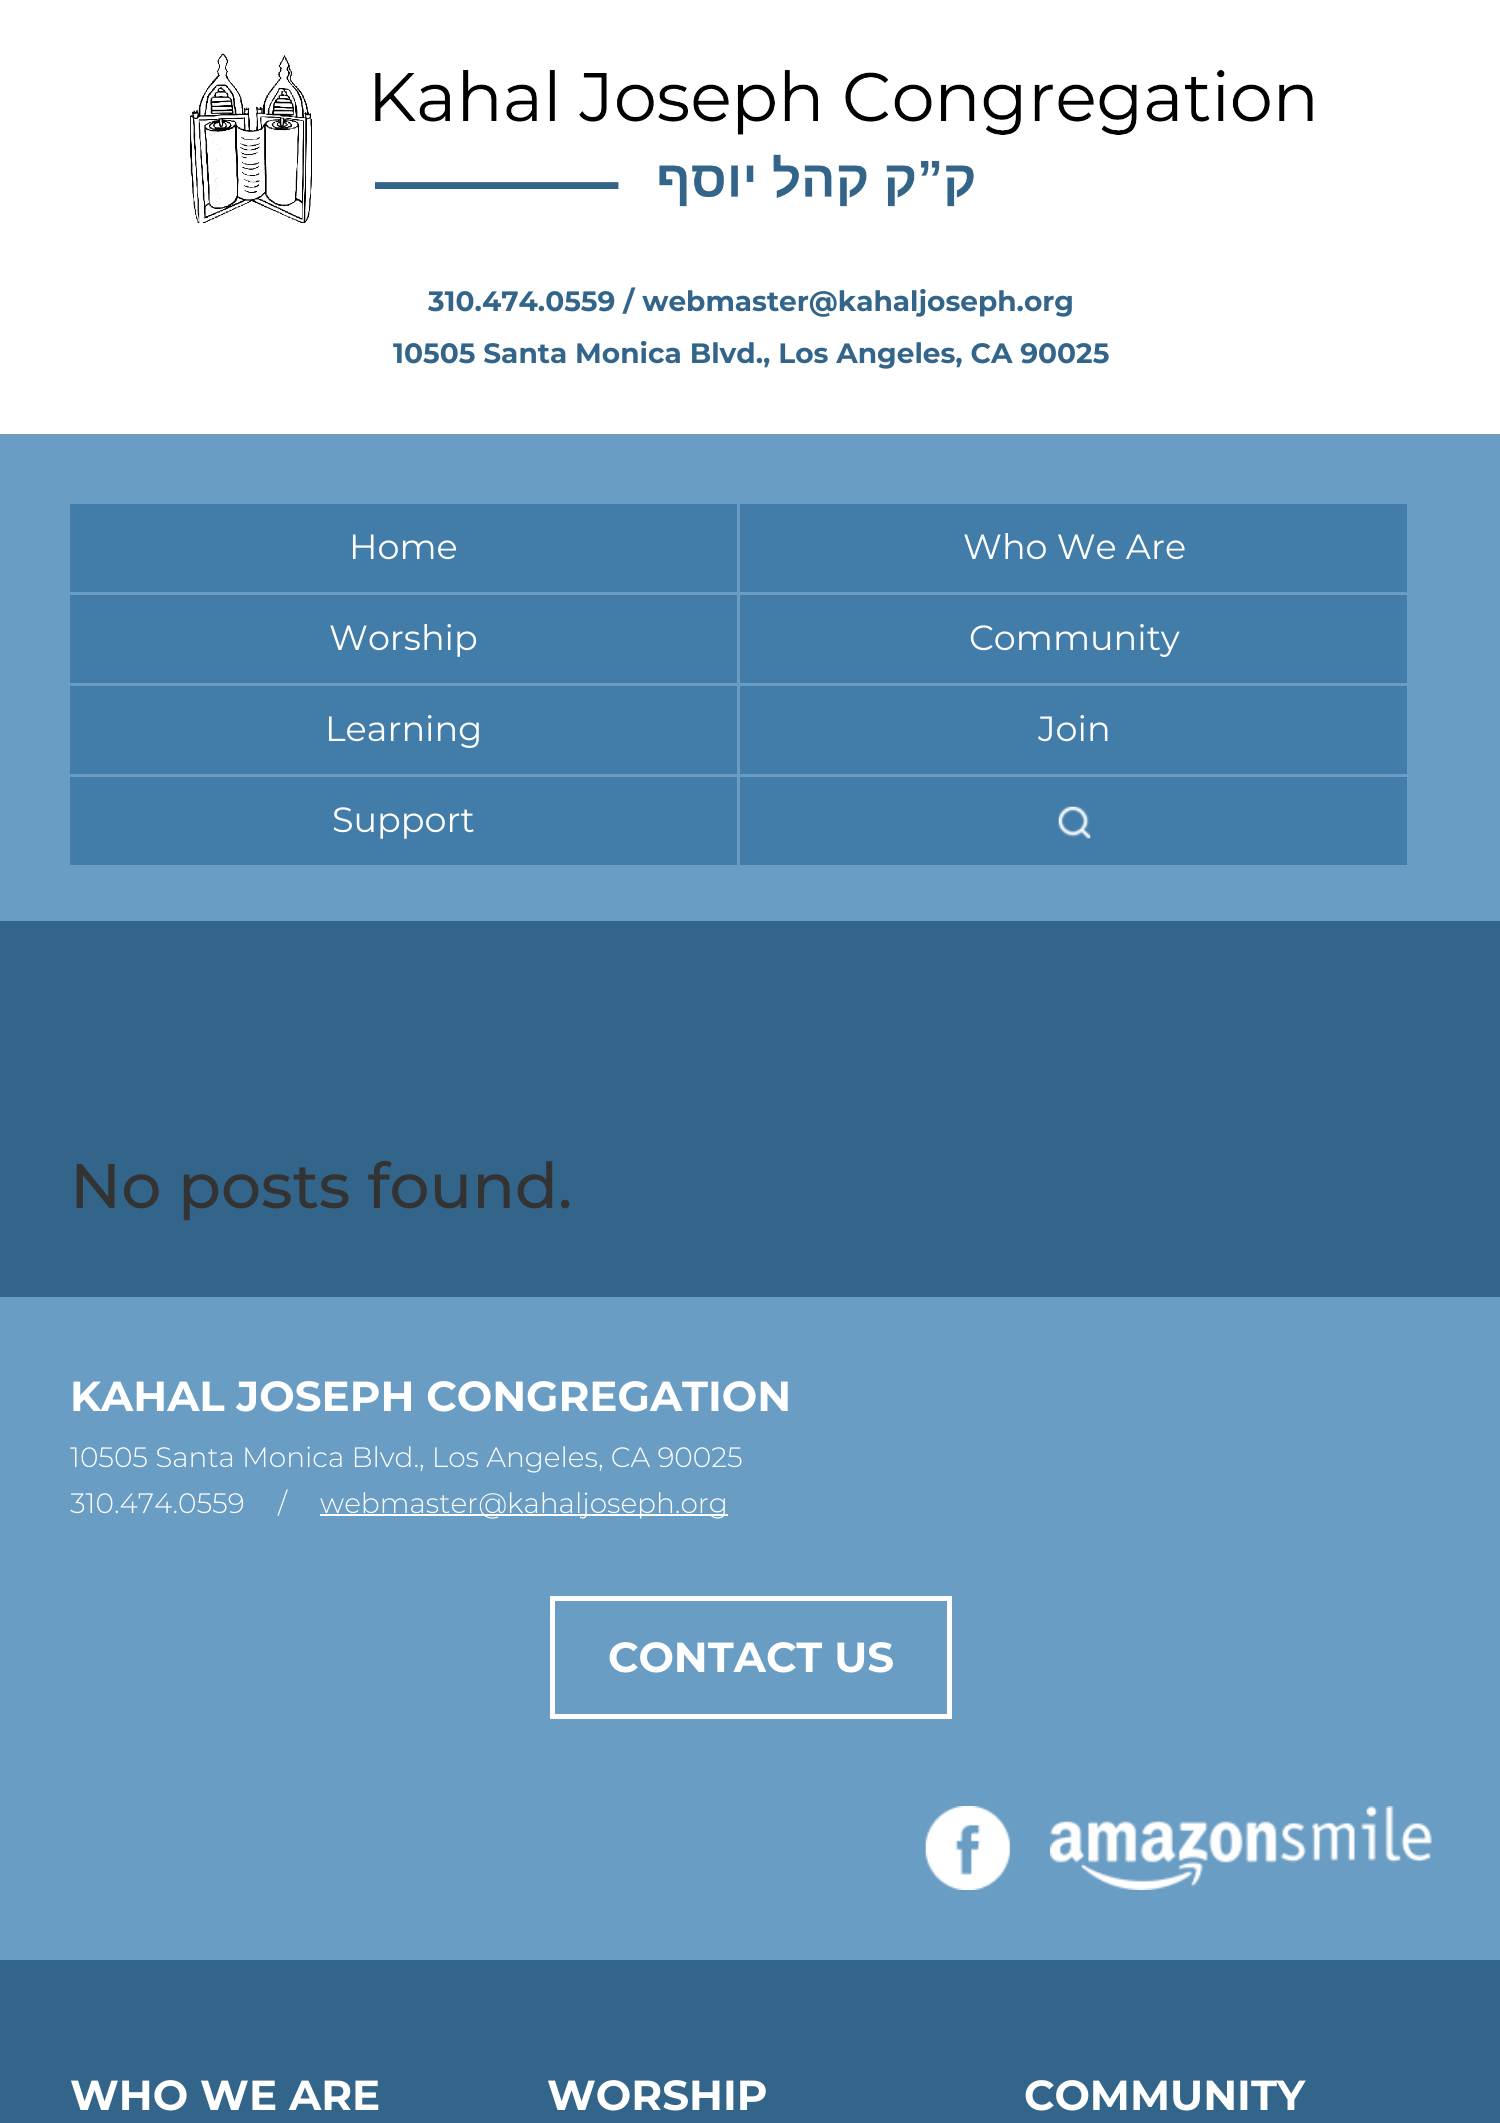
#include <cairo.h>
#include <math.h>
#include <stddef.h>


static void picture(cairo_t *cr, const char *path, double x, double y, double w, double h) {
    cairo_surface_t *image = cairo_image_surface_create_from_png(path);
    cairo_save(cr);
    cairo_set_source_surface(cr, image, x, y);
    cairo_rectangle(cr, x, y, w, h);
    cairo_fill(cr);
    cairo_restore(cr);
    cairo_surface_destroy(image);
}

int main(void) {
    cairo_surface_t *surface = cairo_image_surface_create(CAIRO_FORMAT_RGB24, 1500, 2123);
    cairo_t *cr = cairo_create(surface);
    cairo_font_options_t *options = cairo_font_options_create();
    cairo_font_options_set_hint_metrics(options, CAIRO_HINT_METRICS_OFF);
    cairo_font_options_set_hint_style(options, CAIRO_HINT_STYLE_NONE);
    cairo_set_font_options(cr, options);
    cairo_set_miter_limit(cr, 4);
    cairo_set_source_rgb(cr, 0.2, 0.396, 0.541);
    cairo_paint(cr);
    cairo_set_source_rgb(cr, 1, 1, 1);
    cairo_rectangle(cr, 0, 0, 1500, 434);
    cairo_fill(cr);
    picture(cr, "img1.png", 190, 53, 1123, 170);
    cairo_select_font_face(cr, "Montserrat", CAIRO_FONT_SLANT_NORMAL, CAIRO_FONT_WEIGHT_BOLD);
    cairo_set_font_size(cr, 28);
    cairo_set_source_rgb(cr, 0.2, 0.396, 0.541);
    cairo_move_to(cr, 428, 311);
    cairo_show_text(cr, "310.474.0559 / webmaster@kahaljoseph.org");
    cairo_move_to(cr, 393, 363);
    cairo_show_text(cr, "10505 Santa Monica Blvd., Los Angeles, CA 90025");
    cairo_set_source_rgb(cr, 0.416, 0.616, 0.769);
    cairo_rectangle(cr, 0, 434, 1500, 487);
    cairo_fill(cr);
    cairo_set_source_rgb(cr, 0.259, 0.486, 0.659);
    cairo_rectangle(cr, 70, 504, 667, 88);
    cairo_fill(cr);
    cairo_select_font_face(cr, "Montserrat", CAIRO_FONT_SLANT_NORMAL, CAIRO_FONT_WEIGHT_NORMAL);
    cairo_set_font_size(cr, 35);
    cairo_set_source_rgb(cr, 1, 1, 1);
    cairo_move_to(cr, 349, 559);
    cairo_show_text(cr, "Home");
    cairo_set_source_rgb(cr, 0.259, 0.486, 0.659);
    cairo_rectangle(cr, 740, 504, 667, 88);
    cairo_fill(cr);
    cairo_set_source_rgb(cr, 1, 1, 1);
    cairo_move_to(cr, 963, 559);
    cairo_show_text(cr, "Who We Are");
    cairo_set_source_rgb(cr, 0.259, 0.486, 0.659);
    cairo_rectangle(cr, 70, 595, 667, 88);
    cairo_fill(cr);
    cairo_set_source_rgb(cr, 1, 1, 1);
    cairo_move_to(cr, 329, 650);
    cairo_show_text(cr, "Worship");
    cairo_set_source_rgb(cr, 0.259, 0.486, 0.659);
    cairo_rectangle(cr, 740, 595, 667, 88);
    cairo_fill(cr);
    cairo_set_source_rgb(cr, 1, 1, 1);
    cairo_move_to(cr, 969, 650);
    cairo_show_text(cr, "Community");
    cairo_set_source_rgb(cr, 0.259, 0.486, 0.659);
    cairo_rectangle(cr, 70, 686, 667, 88);
    cairo_fill(cr);
    cairo_set_source_rgb(cr, 1, 1, 1);
    cairo_move_to(cr, 325, 741);
    cairo_show_text(cr, "Learning");
    cairo_set_source_rgb(cr, 0.259, 0.486, 0.659);
    cairo_rectangle(cr, 740, 686, 667, 88);
    cairo_fill(cr);
    cairo_set_source_rgb(cr, 1, 1, 1);
    cairo_move_to(cr, 1038, 741);
    cairo_show_text(cr, "Join");
    cairo_set_source_rgb(cr, 0.259, 0.486, 0.659);
    cairo_rectangle(cr, 70, 777, 667, 88);
    cairo_fill(cr);
    cairo_set_source_rgb(cr, 1, 1, 1);
    cairo_move_to(cr, 332, 832);
    cairo_show_text(cr, "Support");
    cairo_set_source_rgb(cr, 0.259, 0.486, 0.659);
    cairo_rectangle(cr, 740, 777, 667, 88);
    cairo_fill(cr);
    picture(cr, "img2.png", 1058, 806, 33, 33);
    cairo_select_font_face(cr, "Montserrat Medium", CAIRO_FONT_SLANT_NORMAL, CAIRO_FONT_WEIGHT_NORMAL);
    cairo_set_font_size(cr, 63);
    cairo_set_source_rgb(cr, 0.2, 0.2, 0.2);
    cairo_move_to(cr, 70, 1208);
    cairo_show_text(cr, "No posts found.");
    cairo_set_source_rgb(cr, 0.416, 0.616, 0.769);
    cairo_rectangle(cr, 0, 1297, 1500, 663);
    cairo_fill(cr);
    cairo_select_font_face(cr, "Montserrat", CAIRO_FONT_SLANT_NORMAL, CAIRO_FONT_WEIGHT_BOLD);
    cairo_set_font_size(cr, 42);
    cairo_set_source_rgb(cr, 1, 1, 1);
    cairo_move_to(cr, 70, 1411);
    cairo_show_text(cr, "KAHAL JOSEPH CONGREGATION");
    cairo_select_font_face(cr, "Montserrat Light", CAIRO_FONT_SLANT_NORMAL, CAIRO_FONT_WEIGHT_NORMAL);
    cairo_set_font_size(cr, 28);
    cairo_move_to(cr, 70, 1467);
    cairo_show_text(cr, "10505 Santa Monica Blvd., Los Angeles, CA 90025");
    cairo_move_to(cr, 70, 1513);
    cairo_show_text(cr, "310.474.0559");
    cairo_move_to(cr, 278, 1513);
    cairo_show_text(cr, "/");
    cairo_rectangle(cr, 320, 1514, 408, 2);
    cairo_fill(cr);
    cairo_move_to(cr, 320, 1513);
    cairo_show_text(cr, "webmaster@kahaljoseph.org");
    cairo_rectangle(cr, 552.5, 1598.5, 397, 118);
    cairo_set_line_width(cr, 5);
    cairo_stroke(cr);
    cairo_select_font_face(cr, "Montserrat", CAIRO_FONT_SLANT_NORMAL, CAIRO_FONT_WEIGHT_BOLD);
    cairo_set_font_size(cr, 42);
    cairo_move_to(cr, 608, 1672);
    cairo_show_text(cr, "CONTACT US");
    picture(cr, "img3.png", 925, 1806, 85, 84);
    picture(cr, "img4.png", 1050, 1806, 382, 84);
    cairo_move_to(cr, 70, 2110);
    cairo_show_text(cr, "WHO WE ARE");
    cairo_move_to(cr, 547, 2110);
    cairo_show_text(cr, "WORSHIP");
    cairo_move_to(cr, 1024, 2110);
    cairo_show_text(cr, "COMMUNITY");
    cairo_surface_write_to_png(surface, "page.png");
    cairo_font_options_destroy(options);
    cairo_destroy(cr);
    cairo_surface_destroy(surface);
    return 0;
}
